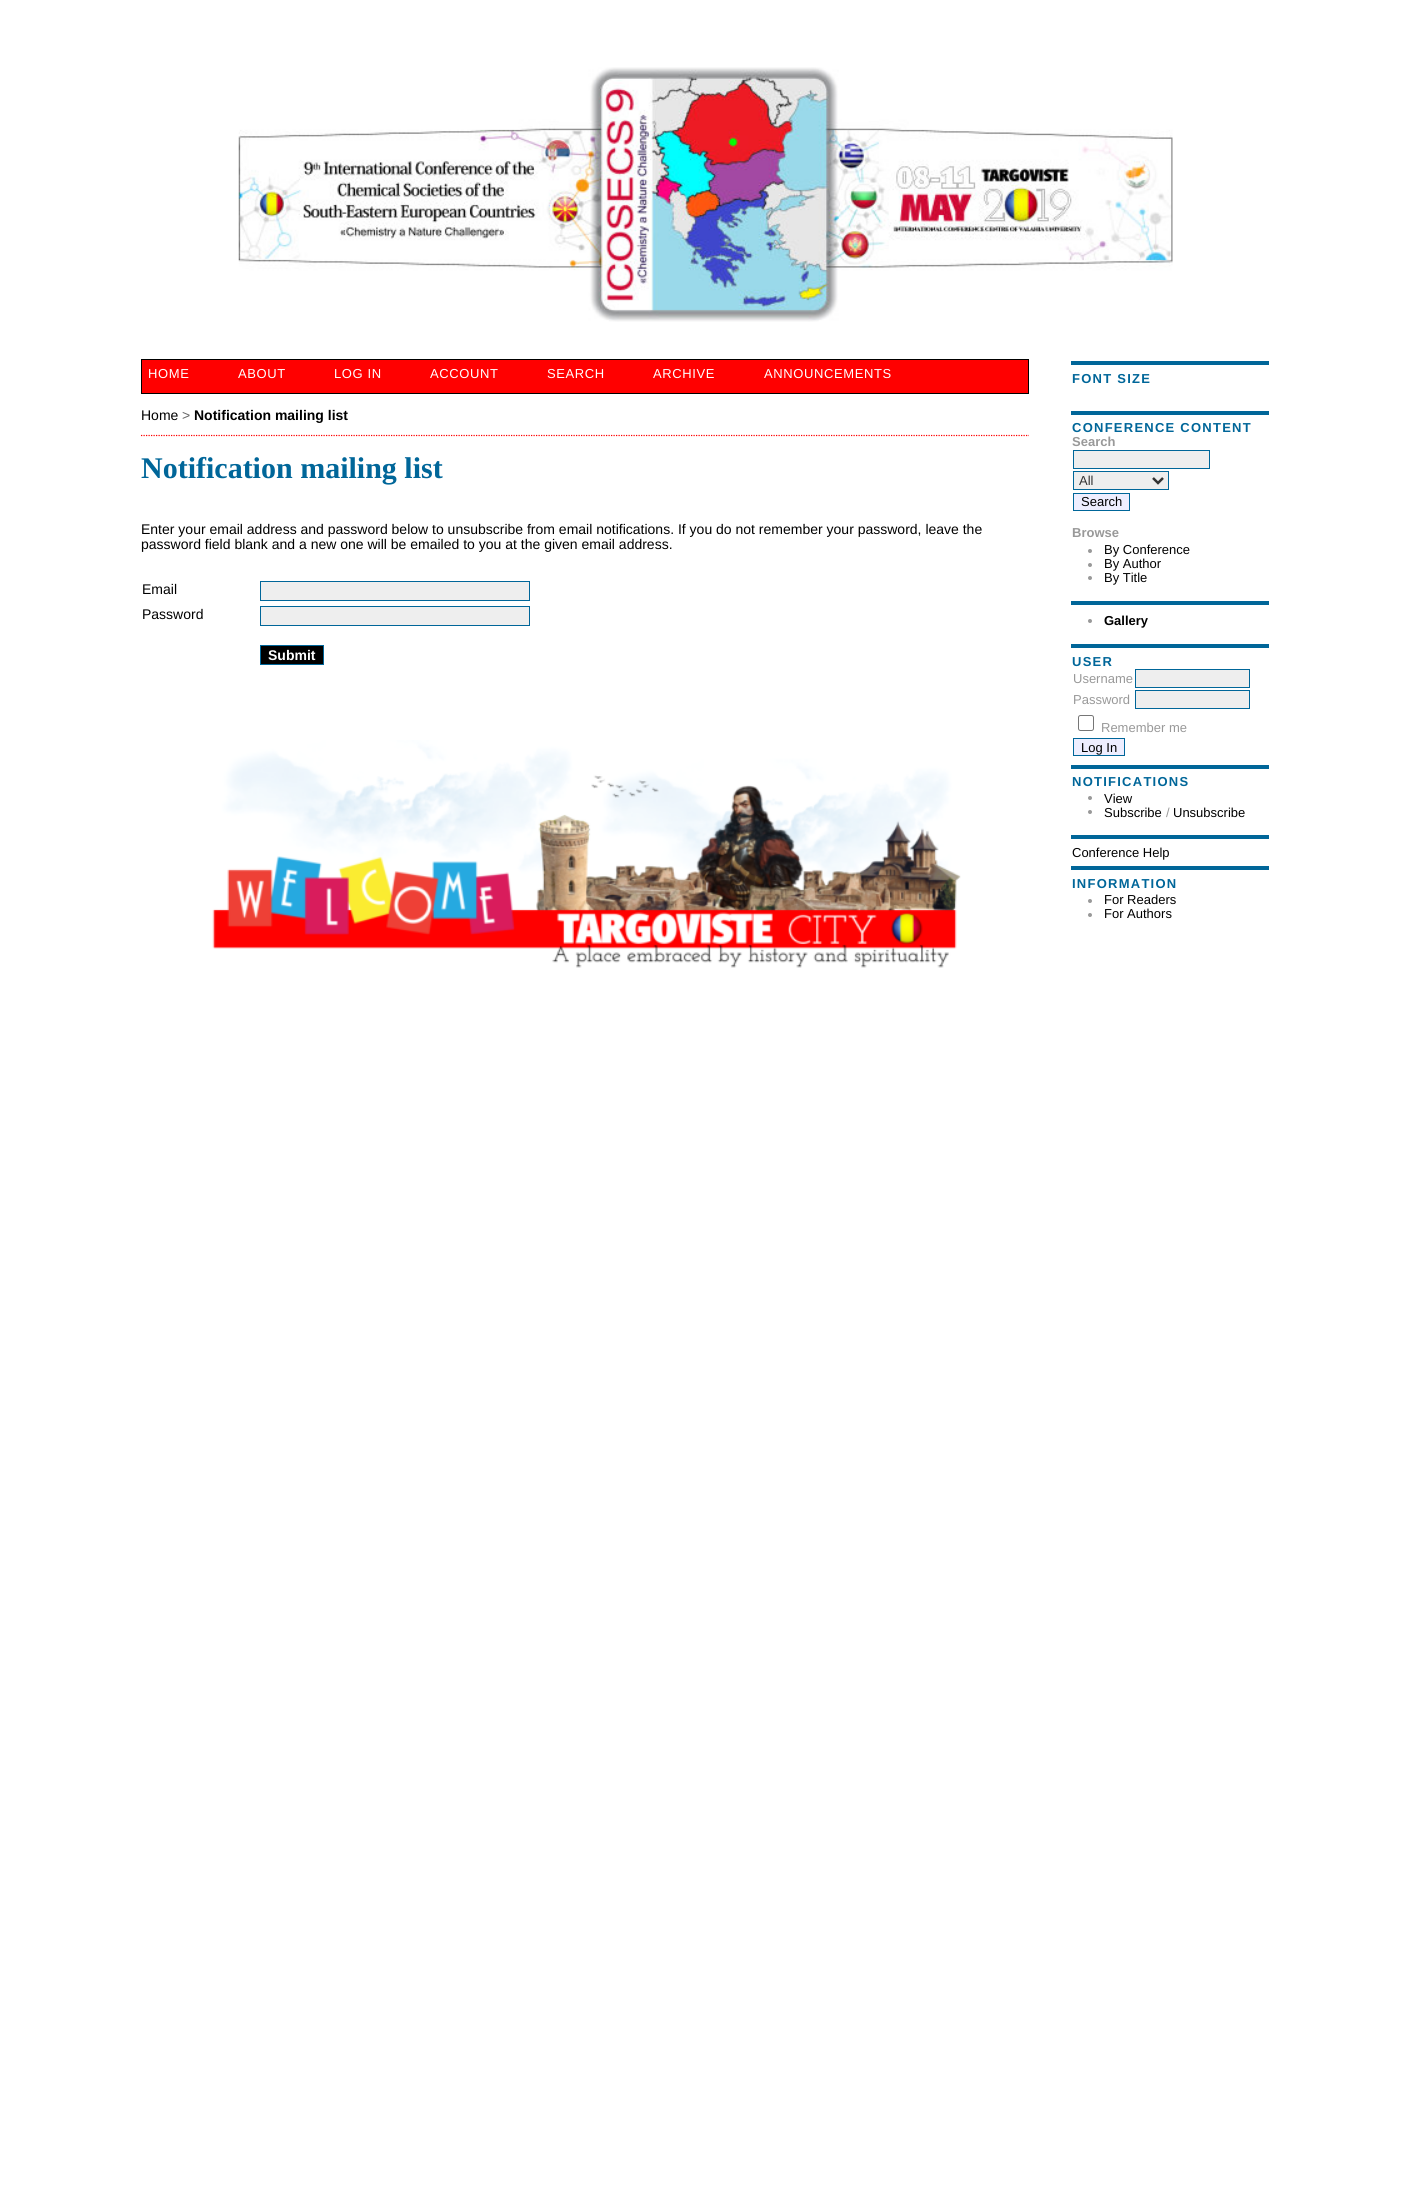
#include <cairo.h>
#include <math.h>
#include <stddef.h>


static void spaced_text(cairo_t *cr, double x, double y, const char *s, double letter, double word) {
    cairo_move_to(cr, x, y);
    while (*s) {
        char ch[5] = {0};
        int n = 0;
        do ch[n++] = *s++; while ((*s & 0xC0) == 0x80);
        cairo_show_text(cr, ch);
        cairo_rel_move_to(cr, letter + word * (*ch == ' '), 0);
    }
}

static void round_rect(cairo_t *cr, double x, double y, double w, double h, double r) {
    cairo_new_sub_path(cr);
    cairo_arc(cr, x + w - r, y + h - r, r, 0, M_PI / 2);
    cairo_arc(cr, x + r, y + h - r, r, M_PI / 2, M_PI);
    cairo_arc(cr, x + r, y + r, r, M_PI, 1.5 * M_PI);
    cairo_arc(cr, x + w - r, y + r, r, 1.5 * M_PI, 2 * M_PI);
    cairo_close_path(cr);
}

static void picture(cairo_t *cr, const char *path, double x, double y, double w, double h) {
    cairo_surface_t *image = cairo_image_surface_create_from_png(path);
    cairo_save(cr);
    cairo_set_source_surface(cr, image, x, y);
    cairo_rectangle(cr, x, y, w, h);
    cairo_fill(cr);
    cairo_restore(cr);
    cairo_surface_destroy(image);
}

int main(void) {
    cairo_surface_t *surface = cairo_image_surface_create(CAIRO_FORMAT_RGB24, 1409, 2189);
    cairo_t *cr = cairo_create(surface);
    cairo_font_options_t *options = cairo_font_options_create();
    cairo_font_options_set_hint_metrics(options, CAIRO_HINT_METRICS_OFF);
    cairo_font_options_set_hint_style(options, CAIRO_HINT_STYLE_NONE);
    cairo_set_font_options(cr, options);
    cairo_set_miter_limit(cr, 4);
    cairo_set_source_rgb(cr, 1, 1, 1);
    cairo_paint(cr);
    picture(cr, "img1.png", 238, 67, 935, 255);
    cairo_set_source_rgb(cr, 1, 0, 0);
    cairo_rectangle(cr, 141.5, 359.5, 887, 34);
    cairo_fill_preserve(cr);
    cairo_set_source_rgb(cr, 0, 0, 0);
    cairo_set_line_width(cr, 1);
    cairo_stroke(cr);
    cairo_select_font_face(cr, "Liberation Sans", CAIRO_FONT_SLANT_NORMAL, CAIRO_FONT_WEIGHT_NORMAL);
    cairo_set_font_size(cr, 13);
    cairo_set_source_rgb(cr, 1, 1, 1);
    spaced_text(cr, 148, 378, "HOME", 0.6, 0);
    spaced_text(cr, 238, 378, "ABOUT", 0.6, 0);
    spaced_text(cr, 334, 378, "LOG IN", 0.6, 0);
    spaced_text(cr, 430, 378, "ACCOUNT", 0.6, 0);
    spaced_text(cr, 547, 378, "SEARCH", 0.6, 0);
    spaced_text(cr, 653, 378, "ARCHIVE", 0.6, 0);
    spaced_text(cr, 764, 378, "ANNOUNCEMENTS", 0.6, 0);
    cairo_new_path(cr);
    cairo_move_to(cr, 141, 435.5);
    cairo_line_to(cr, 1029, 435.5);
    cairo_set_source_rgb(cr, 1, 0, 0);
    cairo_set_line_width(cr, 1.2);
    cairo_set_dash(cr, (double[]){1.25, 1.25}, 2, 0);
    cairo_stroke(cr);
    cairo_set_font_size(cr, 14);
    cairo_set_source_rgb(cr, 0, 0, 0);
    cairo_move_to(cr, 141, 420);
    cairo_show_text(cr, "Home");
    cairo_set_source_rgb(cr, 0.4, 0.4, 0.4);
    cairo_move_to(cr, 182, 420);
    cairo_show_text(cr, ">");
    cairo_select_font_face(cr, "Liberation Sans", CAIRO_FONT_SLANT_NORMAL, CAIRO_FONT_WEIGHT_BOLD);
    cairo_set_source_rgb(cr, 0, 0, 0);
    cairo_move_to(cr, 194, 420);
    cairo_show_text(cr, "Notification mailing list");
    cairo_select_font_face(cr, "Liberation Serif", CAIRO_FONT_SLANT_NORMAL, CAIRO_FONT_WEIGHT_BOLD);
    cairo_set_font_size(cr, 30);
    cairo_set_source_rgb(cr, 0, 0.4, 0.6);
    cairo_move_to(cr, 141, 478);
    cairo_show_text(cr, "Notification mailing list");
    cairo_select_font_face(cr, "Liberation Sans", CAIRO_FONT_SLANT_NORMAL, CAIRO_FONT_WEIGHT_NORMAL);
    cairo_set_font_size(cr, 14);
    cairo_set_source_rgb(cr, 0, 0, 0);
    cairo_move_to(cr, 141, 534);
    cairo_show_text(cr, "Enter your email address and password below to unsubscribe from email notifications. If you do not remember your password, leave the");
    cairo_move_to(cr, 141, 549);
    cairo_show_text(cr, "password field blank and a new one will be emailed to you at the given email address.");
    cairo_move_to(cr, 142, 594);
    cairo_show_text(cr, "Email");
    cairo_set_source_rgb(cr, 0.933, 0.933, 0.933);
    cairo_rectangle(cr, 260.5, 581.5, 269, 19);
    cairo_fill_preserve(cr);
    cairo_set_source_rgb(cr, 0, 0.4, 0.6);
    cairo_set_line_width(cr, 1);
    cairo_set_dash(cr, NULL, 0, 0);
    cairo_stroke(cr);
    cairo_set_source_rgb(cr, 0, 0, 0);
    cairo_move_to(cr, 142, 619);
    cairo_show_text(cr, "Password");
    cairo_set_source_rgb(cr, 0.933, 0.933, 0.933);
    cairo_rectangle(cr, 260.5, 606.5, 269, 19);
    cairo_fill_preserve(cr);
    cairo_set_source_rgb(cr, 0, 0.4, 0.6);
    cairo_stroke(cr);
    cairo_set_source_rgb(cr, 0, 0, 0);
    cairo_rectangle(cr, 260.5, 645.5, 63, 19);
    cairo_fill_preserve(cr);
    cairo_set_source_rgb(cr, 0, 0.4, 0.6);
    cairo_stroke(cr);
    cairo_select_font_face(cr, "Liberation Sans", CAIRO_FONT_SLANT_NORMAL, CAIRO_FONT_WEIGHT_BOLD);
    cairo_set_source_rgb(cr, 1, 1, 1);
    cairo_move_to(cr, 268, 660);
    cairo_show_text(cr, "Submit");
    picture(cr, "img2.png", 212, 740, 749, 228);
    cairo_set_source_rgb(cr, 0, 0.4, 0.6);
    cairo_rectangle(cr, 1071, 361, 198, 4);
    cairo_fill(cr);
    cairo_set_font_size(cr, 13);
    spaced_text(cr, 1072, 383, "FONT SIZE", 1.25, 0);
    cairo_rectangle(cr, 1071, 411, 198, 4);
    cairo_fill(cr);
    spaced_text(cr, 1072, 432, "CONFERENCE CONTENT", 1.25, 0);
    cairo_set_source_rgb(cr, 0.6, 0.6, 0.6);
    cairo_move_to(cr, 1072, 446);
    cairo_show_text(cr, "Search");
    cairo_set_source_rgb(cr, 0.933, 0.933, 0.933);
    cairo_rectangle(cr, 1073.5, 450.5, 136, 18);
    cairo_fill_preserve(cr);
    cairo_set_source_rgb(cr, 0, 0.4, 0.6);
    cairo_stroke(cr);
    cairo_set_source_rgb(cr, 0.933, 0.933, 0.933);
    cairo_rectangle(cr, 1073.5, 471.5, 95, 18);
    cairo_fill_preserve(cr);
    cairo_set_source_rgb(cr, 0, 0.4, 0.6);
    cairo_stroke(cr);
    cairo_new_path(cr);
    cairo_move_to(cr, 1153, 478);
    cairo_line_to(cr, 1158, 483);
    cairo_line_to(cr, 1163, 478);
    cairo_set_source_rgb(cr, 0.2, 0.2, 0.2);
    cairo_set_line_width(cr, 2.5);
    cairo_stroke(cr);
    cairo_select_font_face(cr, "Liberation Sans", CAIRO_FONT_SLANT_NORMAL, CAIRO_FONT_WEIGHT_NORMAL);
    cairo_move_to(cr, 1079, 485);
    cairo_show_text(cr, "All");
    cairo_set_source_rgb(cr, 0.933, 0.933, 1);
    cairo_rectangle(cr, 1073.5, 493.5, 56, 17);
    cairo_fill_preserve(cr);
    cairo_set_source_rgb(cr, 0, 0.4, 0.6);
    cairo_set_line_width(cr, 1);
    cairo_stroke(cr);
    cairo_set_source_rgb(cr, 0, 0, 0);
    cairo_move_to(cr, 1081, 506);
    cairo_show_text(cr, "Search");
    cairo_select_font_face(cr, "Liberation Sans", CAIRO_FONT_SLANT_NORMAL, CAIRO_FONT_WEIGHT_BOLD);
    cairo_set_source_rgb(cr, 0.6, 0.6, 0.6);
    cairo_move_to(cr, 1072, 537);
    cairo_show_text(cr, "Browse");
    cairo_new_path(cr);
    cairo_arc(cr, 1090, 551, 2, 0, 2 * M_PI);
    cairo_fill(cr);
    cairo_select_font_face(cr, "Liberation Sans", CAIRO_FONT_SLANT_NORMAL, CAIRO_FONT_WEIGHT_NORMAL);
    cairo_set_source_rgb(cr, 0, 0, 0);
    cairo_move_to(cr, 1104, 554);
    cairo_show_text(cr, "By Conference");
    cairo_set_source_rgb(cr, 0.6, 0.6, 0.6);
    cairo_new_path(cr);
    cairo_arc(cr, 1090, 565, 2, 0, 2 * M_PI);
    cairo_fill(cr);
    cairo_set_source_rgb(cr, 0, 0, 0);
    cairo_move_to(cr, 1104, 568);
    cairo_show_text(cr, "By Author");
    cairo_set_source_rgb(cr, 0.6, 0.6, 0.6);
    cairo_new_path(cr);
    cairo_arc(cr, 1090, 578, 2, 0, 2 * M_PI);
    cairo_fill(cr);
    cairo_set_source_rgb(cr, 0, 0, 0);
    cairo_move_to(cr, 1104, 582);
    cairo_show_text(cr, "By Title");
    cairo_set_source_rgb(cr, 0, 0.4, 0.6);
    cairo_rectangle(cr, 1071, 601, 198, 4);
    cairo_fill(cr);
    cairo_set_source_rgb(cr, 0.6, 0.6, 0.6);
    cairo_arc(cr, 1090, 621, 2, 0, 2 * M_PI);
    cairo_fill(cr);
    cairo_select_font_face(cr, "Liberation Sans", CAIRO_FONT_SLANT_NORMAL, CAIRO_FONT_WEIGHT_BOLD);
    cairo_set_source_rgb(cr, 0, 0, 0);
    cairo_move_to(cr, 1104, 625);
    cairo_show_text(cr, "Gallery");
    cairo_set_source_rgb(cr, 0, 0.4, 0.6);
    cairo_rectangle(cr, 1071, 644, 198, 4);
    cairo_fill(cr);
    spaced_text(cr, 1072, 666, "USER", 1.25, 0);
    cairo_select_font_face(cr, "Liberation Sans", CAIRO_FONT_SLANT_NORMAL, CAIRO_FONT_WEIGHT_NORMAL);
    cairo_set_source_rgb(cr, 0.6, 0.6, 0.6);
    cairo_move_to(cr, 1073, 683);
    cairo_show_text(cr, "Username");
    cairo_set_source_rgb(cr, 0.933, 0.933, 0.933);
    cairo_rectangle(cr, 1135.5, 669.5, 114, 18);
    cairo_fill_preserve(cr);
    cairo_set_source_rgb(cr, 0, 0.4, 0.6);
    cairo_stroke(cr);
    cairo_set_source_rgb(cr, 0.6, 0.6, 0.6);
    cairo_move_to(cr, 1073, 704);
    cairo_show_text(cr, "Password");
    cairo_set_source_rgb(cr, 0.933, 0.933, 0.933);
    cairo_rectangle(cr, 1135.5, 690.5, 114, 18);
    cairo_fill_preserve(cr);
    cairo_set_source_rgb(cr, 0, 0.4, 0.6);
    cairo_stroke(cr);
    round_rect(cr, 1078.5, 715.5, 15, 15, 2);
    cairo_set_source_rgb(cr, 0.463, 0.463, 0.463);
    cairo_stroke(cr);
    cairo_set_source_rgb(cr, 0.6, 0.6, 0.6);
    cairo_move_to(cr, 1101, 732);
    cairo_show_text(cr, "Remember me");
    cairo_set_source_rgb(cr, 0.933, 0.933, 1);
    cairo_rectangle(cr, 1073.5, 738.5, 51, 17);
    cairo_fill_preserve(cr);
    cairo_set_source_rgb(cr, 0, 0.4, 0.6);
    cairo_stroke(cr);
    cairo_set_source_rgb(cr, 0, 0, 0);
    cairo_move_to(cr, 1081, 752);
    cairo_show_text(cr, "Log In");
    cairo_set_source_rgb(cr, 0, 0.4, 0.6);
    cairo_rectangle(cr, 1071, 765, 198, 4);
    cairo_fill(cr);
    cairo_select_font_face(cr, "Liberation Sans", CAIRO_FONT_SLANT_NORMAL, CAIRO_FONT_WEIGHT_BOLD);
    spaced_text(cr, 1072, 786, "NOTIFICATIONS", 1.25, 0);
    cairo_set_source_rgb(cr, 0.6, 0.6, 0.6);
    cairo_new_path(cr);
    cairo_arc(cr, 1090, 798, 2, 0, 2 * M_PI);
    cairo_fill(cr);
    cairo_select_font_face(cr, "Liberation Sans", CAIRO_FONT_SLANT_NORMAL, CAIRO_FONT_WEIGHT_NORMAL);
    cairo_set_source_rgb(cr, 0, 0, 0);
    cairo_move_to(cr, 1104, 803);
    cairo_show_text(cr, "View");
    cairo_set_source_rgb(cr, 0.6, 0.6, 0.6);
    cairo_new_path(cr);
    cairo_arc(cr, 1090, 812, 2, 0, 2 * M_PI);
    cairo_fill(cr);
    cairo_set_source_rgb(cr, 0, 0, 0);
    cairo_move_to(cr, 1104, 817);
    cairo_show_text(cr, "Subscribe");
    cairo_set_source_rgb(cr, 0.6, 0.6, 0.6);
    cairo_move_to(cr, 1166, 817);
    cairo_show_text(cr, "/");
    cairo_set_source_rgb(cr, 0, 0, 0);
    cairo_move_to(cr, 1173, 817);
    cairo_show_text(cr, "Unsubscribe");
    cairo_set_source_rgb(cr, 0, 0.4, 0.6);
    cairo_rectangle(cr, 1071, 835, 198, 4);
    cairo_fill(cr);
    cairo_set_source_rgb(cr, 0, 0, 0);
    cairo_move_to(cr, 1072, 857);
    cairo_show_text(cr, "Conference Help");
    cairo_set_source_rgb(cr, 0, 0.4, 0.6);
    cairo_rectangle(cr, 1071, 866, 198, 4);
    cairo_fill(cr);
    cairo_select_font_face(cr, "Liberation Sans", CAIRO_FONT_SLANT_NORMAL, CAIRO_FONT_WEIGHT_BOLD);
    spaced_text(cr, 1072, 888, "INFORMATION", 1.25, 0);
    cairo_set_source_rgb(cr, 0.6, 0.6, 0.6);
    cairo_new_path(cr);
    cairo_arc(cr, 1090, 901, 2, 0, 2 * M_PI);
    cairo_fill(cr);
    cairo_select_font_face(cr, "Liberation Sans", CAIRO_FONT_SLANT_NORMAL, CAIRO_FONT_WEIGHT_NORMAL);
    cairo_set_source_rgb(cr, 0, 0, 0);
    cairo_move_to(cr, 1104, 904);
    cairo_show_text(cr, "For Readers");
    cairo_set_source_rgb(cr, 0.6, 0.6, 0.6);
    cairo_new_path(cr);
    cairo_arc(cr, 1090, 915, 2, 0, 2 * M_PI);
    cairo_fill(cr);
    cairo_set_source_rgb(cr, 0, 0, 0);
    cairo_move_to(cr, 1104, 918);
    cairo_show_text(cr, "For Authors");
    cairo_surface_write_to_png(surface, "page.png");
    cairo_font_options_destroy(options);
    cairo_destroy(cr);
    cairo_surface_destroy(surface);
    return 0;
}
